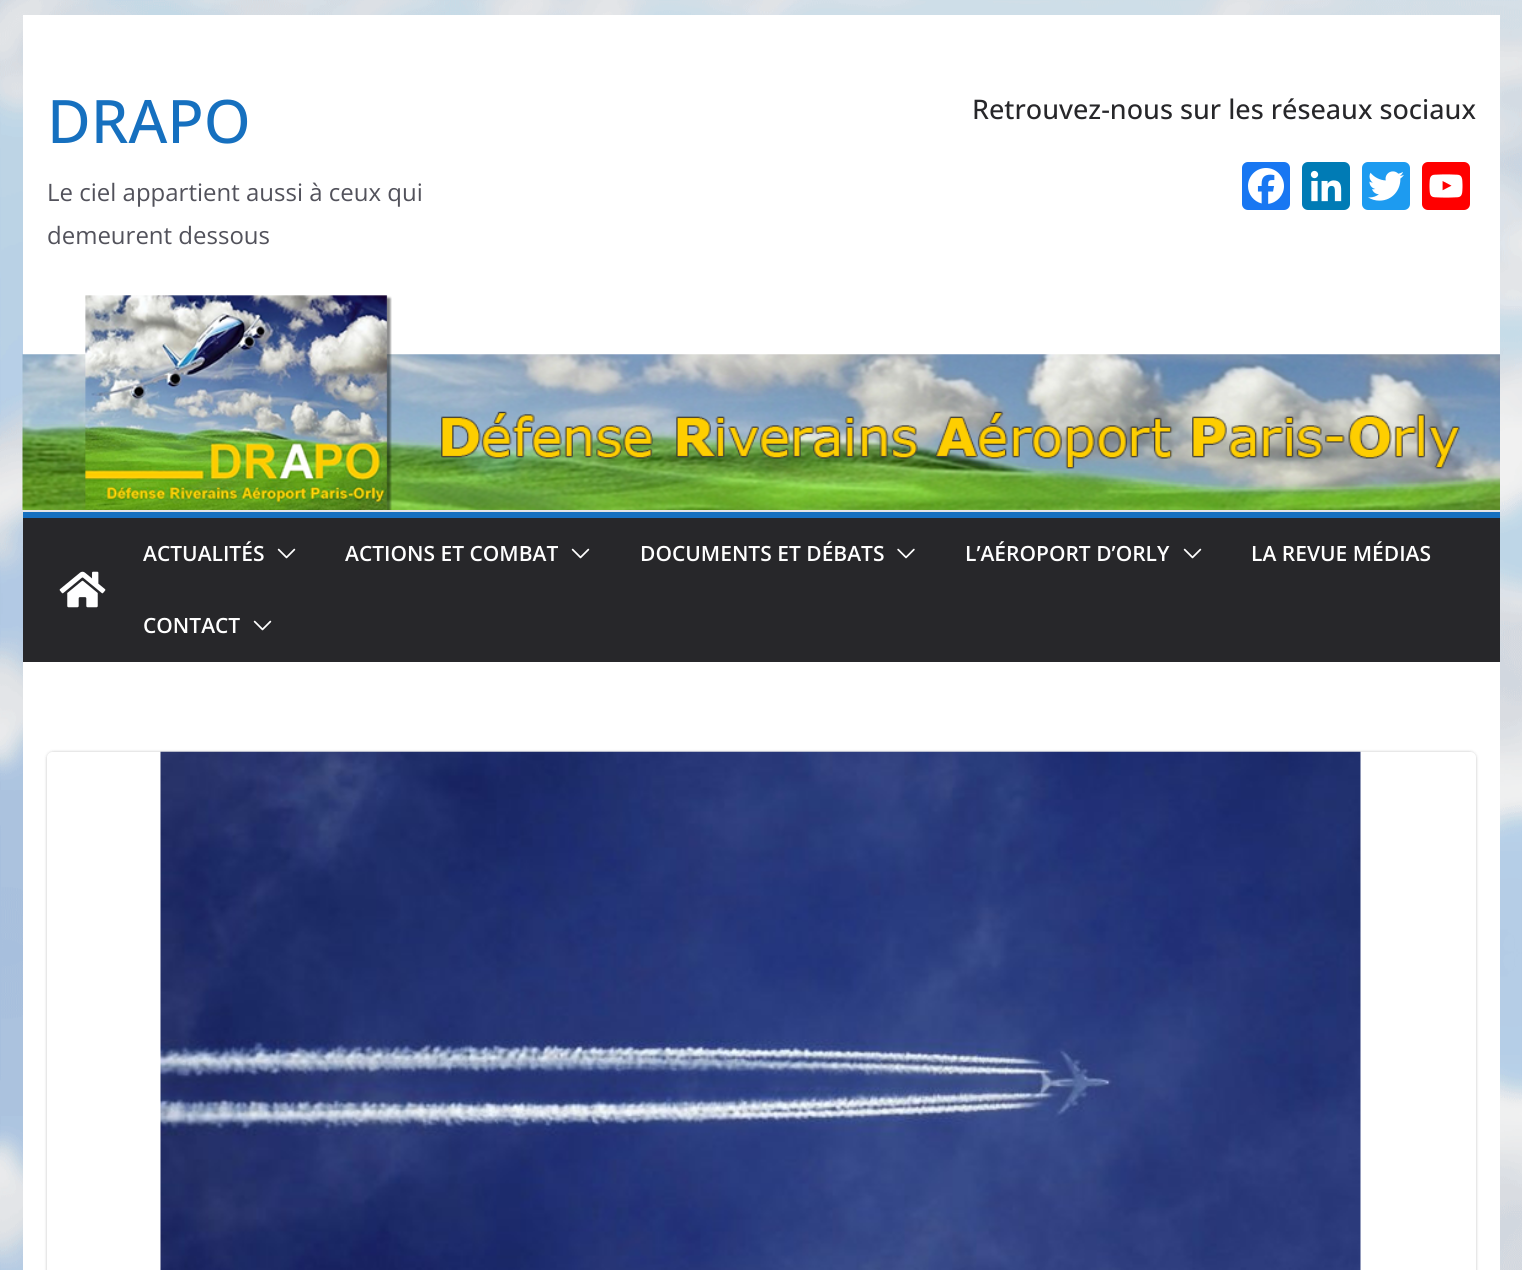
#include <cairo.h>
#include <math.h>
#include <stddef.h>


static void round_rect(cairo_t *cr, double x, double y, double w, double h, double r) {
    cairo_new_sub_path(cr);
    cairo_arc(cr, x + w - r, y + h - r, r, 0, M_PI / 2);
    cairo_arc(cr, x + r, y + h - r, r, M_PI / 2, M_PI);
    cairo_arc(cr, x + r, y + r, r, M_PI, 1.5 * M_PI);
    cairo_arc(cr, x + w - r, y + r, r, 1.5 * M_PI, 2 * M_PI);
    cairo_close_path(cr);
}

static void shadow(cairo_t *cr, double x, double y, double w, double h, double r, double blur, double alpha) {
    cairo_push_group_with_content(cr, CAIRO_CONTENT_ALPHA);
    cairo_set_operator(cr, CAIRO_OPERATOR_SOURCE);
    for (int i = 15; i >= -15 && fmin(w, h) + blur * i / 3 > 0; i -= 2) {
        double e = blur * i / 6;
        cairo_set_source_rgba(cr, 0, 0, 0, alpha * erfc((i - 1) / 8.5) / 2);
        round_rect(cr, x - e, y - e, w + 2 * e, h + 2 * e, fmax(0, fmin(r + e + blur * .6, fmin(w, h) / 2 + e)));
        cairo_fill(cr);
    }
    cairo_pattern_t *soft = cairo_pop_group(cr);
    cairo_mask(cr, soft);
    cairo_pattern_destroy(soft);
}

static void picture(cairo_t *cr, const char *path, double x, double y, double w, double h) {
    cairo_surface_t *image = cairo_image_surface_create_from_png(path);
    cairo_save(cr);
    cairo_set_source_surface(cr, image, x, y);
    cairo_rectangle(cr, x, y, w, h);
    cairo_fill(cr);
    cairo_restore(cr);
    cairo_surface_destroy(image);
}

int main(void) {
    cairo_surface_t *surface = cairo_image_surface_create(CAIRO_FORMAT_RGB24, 1522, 1270);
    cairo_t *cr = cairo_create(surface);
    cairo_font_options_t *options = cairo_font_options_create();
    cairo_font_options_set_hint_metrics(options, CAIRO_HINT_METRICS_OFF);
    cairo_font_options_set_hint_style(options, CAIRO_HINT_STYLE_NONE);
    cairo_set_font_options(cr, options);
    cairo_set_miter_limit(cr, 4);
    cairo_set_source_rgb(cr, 1, 1, 1);
    cairo_paint(cr);
    picture(cr, "img1.png", 0, 0, 1522, 1270);
    cairo_set_source_rgb(cr, 1, 1, 1);
    cairo_rectangle(cr, 23, 15, 1477, 340);
    cairo_fill(cr);
    cairo_select_font_face(cr, "Open Sans Medium", CAIRO_FONT_SLANT_NORMAL, CAIRO_FONT_WEIGHT_NORMAL);
    cairo_set_font_size(cr, 60);
    cairo_set_source_rgb(cr, 0.086, 0.439, 0.749);
    cairo_move_to(cr, 47, 143);
    cairo_show_text(cr, "DRAPO");
    cairo_select_font_face(cr, "Open Sans", CAIRO_FONT_SLANT_NORMAL, CAIRO_FONT_WEIGHT_NORMAL);
    cairo_set_font_size(cr, 24);
    cairo_set_source_rgb(cr, 0.322, 0.322, 0.357);
    cairo_move_to(cr, 47, 201);
    cairo_show_text(cr, "Le ciel appartient aussi à ceux qui");
    cairo_move_to(cr, 47, 244);
    cairo_show_text(cr, "demeurent dessous");
    cairo_select_font_face(cr, "Open Sans Medium", CAIRO_FONT_SLANT_NORMAL, CAIRO_FONT_WEIGHT_NORMAL);
    cairo_set_font_size(cr, 27);
    cairo_set_source_rgb(cr, 0.153, 0.153, 0.165);
    cairo_move_to(cr, 972, 119);
    cairo_show_text(cr, "Retrouvez-nous sur les réseaux sociaux");
    cairo_set_source_rgb(cr, 0.094, 0.467, 0.949);
    round_rect(cr, 1242, 162, 48, 48, 6);
    cairo_fill(cr);
    picture(cr, "img2.png", 1248, 168, 36, 36);
    cairo_set_source_rgb(cr, 0, 0.482, 0.71);
    round_rect(cr, 1302, 162, 48, 48, 6);
    cairo_fill(cr);
    picture(cr, "img3.png", 1310, 170, 32, 32);
    cairo_set_source_rgb(cr, 0.114, 0.608, 0.941);
    round_rect(cr, 1362, 162, 48, 48, 6);
    cairo_fill(cr);
    picture(cr, "img4.png", 1368, 171, 36, 30);
    cairo_set_source_rgb(cr, 1, 0, 0);
    round_rect(cr, 1422, 162, 48, 48, 6);
    cairo_fill(cr);
    picture(cr, "img5.png", 1429, 174, 34, 24);
    picture(cr, "img6.png", 22, 295, 1478, 215);
    cairo_set_source_rgb(cr, 0.894, 0.894, 0.906);
    cairo_rectangle(cr, 23, 510, 1477, 2);
    cairo_fill(cr);
    cairo_set_source_rgb(cr, 0.153, 0.153, 0.165);
    cairo_rectangle(cr, 23, 518, 1477, 144);
    cairo_fill(cr);
    cairo_set_source_rgb(cr, 0.086, 0.439, 0.749);
    cairo_rectangle(cr, 23, 512, 1477, 6);
    cairo_fill(cr);
    picture(cr, "img7.png", 59, 571, 47, 37);
    cairo_select_font_face(cr, "Open Sans SemiBold", CAIRO_FONT_SLANT_NORMAL, CAIRO_FONT_WEIGHT_NORMAL);
    cairo_set_font_size(cr, 21);
    cairo_set_source_rgb(cr, 1, 1, 1);
    cairo_move_to(cr, 143, 561);
    cairo_show_text(cr, "ACTUALITÉS");
    picture(cr, "img8.png", 277, 548, 19, 11);
    cairo_move_to(cr, 345, 561);
    cairo_show_text(cr, "ACTIONS ET COMBAT");
    picture(cr, "img8.png", 571, 548, 19, 11);
    cairo_move_to(cr, 640, 561);
    cairo_show_text(cr, "DOCUMENTS ET DÉBATS");
    picture(cr, "img9.png", 897, 548, 18, 11);
    cairo_move_to(cr, 965, 561);
    cairo_show_text(cr, "L’AÉROPORT D’ORLY");
    picture(cr, "img8.png", 1183, 548, 19, 11);
    cairo_move_to(cr, 1251, 561);
    cairo_show_text(cr, "LA REVUE MÉDIAS");
    cairo_move_to(cr, 143, 633);
    cairo_show_text(cr, "CONTACT");
    picture(cr, "img8.png", 253, 620, 19, 11);
    cairo_rectangle(cr, 23, 662, 1477, 608);
    cairo_fill(cr);
    cairo_save(cr);
    cairo_set_fill_rule(cr, CAIRO_FILL_RULE_EVEN_ODD);
    cairo_new_path(cr);
    cairo_move_to(cr, 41, 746);
    cairo_line_to(cr, 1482, 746);
    cairo_line_to(cr, 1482, 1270);
    cairo_line_to(cr, 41, 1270);
    cairo_close_path(cr);
    cairo_move_to(cr, 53, 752);
    cairo_line_to(cr, 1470, 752);
    cairo_curve_to(cr, 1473.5, 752, 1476, 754.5, 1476, 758);
    cairo_line_to(cr, 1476, 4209);
    cairo_curve_to(cr, 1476, 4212.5, 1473.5, 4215, 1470, 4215);
    cairo_line_to(cr, 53, 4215);
    cairo_curve_to(cr, 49.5, 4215, 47, 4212.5, 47, 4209);
    cairo_line_to(cr, 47, 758);
    cairo_curve_to(cr, 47, 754.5, 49.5, 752, 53, 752);
    cairo_close_path(cr);
    cairo_clip(cr);
    cairo_set_source_rgb(cr, 0, 0, 0);
    shadow(cr, 47, 752, 1429, 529, 6, 1.5, 0.24);
    cairo_restore(cr);
    picture(cr, "img10.png", 160, 751, 1201, 519);
    cairo_surface_write_to_png(surface, "page.png");
    cairo_font_options_destroy(options);
    cairo_destroy(cr);
    cairo_surface_destroy(surface);
    return 0;
}
